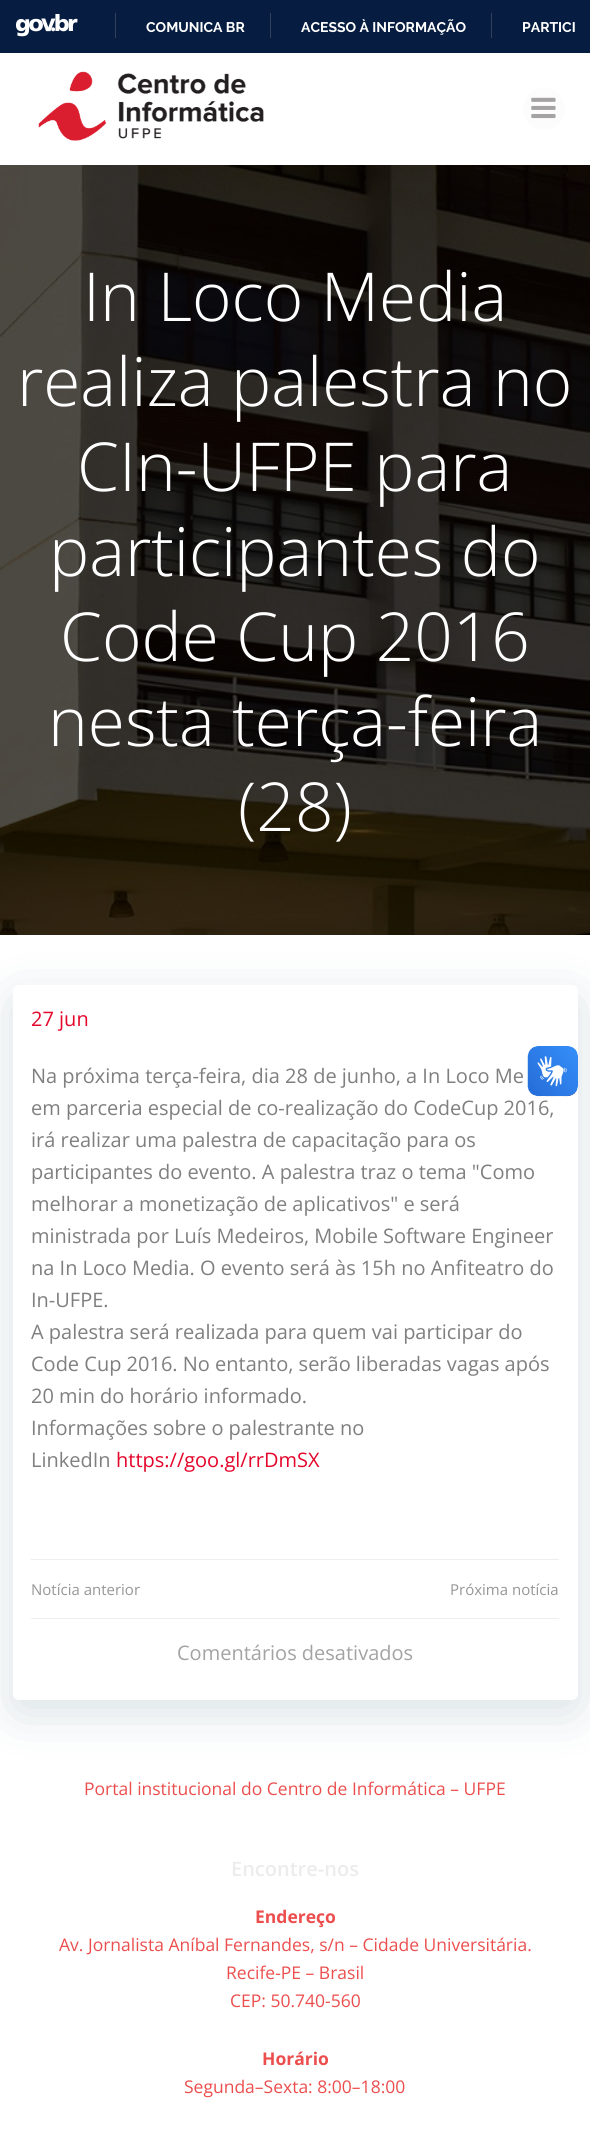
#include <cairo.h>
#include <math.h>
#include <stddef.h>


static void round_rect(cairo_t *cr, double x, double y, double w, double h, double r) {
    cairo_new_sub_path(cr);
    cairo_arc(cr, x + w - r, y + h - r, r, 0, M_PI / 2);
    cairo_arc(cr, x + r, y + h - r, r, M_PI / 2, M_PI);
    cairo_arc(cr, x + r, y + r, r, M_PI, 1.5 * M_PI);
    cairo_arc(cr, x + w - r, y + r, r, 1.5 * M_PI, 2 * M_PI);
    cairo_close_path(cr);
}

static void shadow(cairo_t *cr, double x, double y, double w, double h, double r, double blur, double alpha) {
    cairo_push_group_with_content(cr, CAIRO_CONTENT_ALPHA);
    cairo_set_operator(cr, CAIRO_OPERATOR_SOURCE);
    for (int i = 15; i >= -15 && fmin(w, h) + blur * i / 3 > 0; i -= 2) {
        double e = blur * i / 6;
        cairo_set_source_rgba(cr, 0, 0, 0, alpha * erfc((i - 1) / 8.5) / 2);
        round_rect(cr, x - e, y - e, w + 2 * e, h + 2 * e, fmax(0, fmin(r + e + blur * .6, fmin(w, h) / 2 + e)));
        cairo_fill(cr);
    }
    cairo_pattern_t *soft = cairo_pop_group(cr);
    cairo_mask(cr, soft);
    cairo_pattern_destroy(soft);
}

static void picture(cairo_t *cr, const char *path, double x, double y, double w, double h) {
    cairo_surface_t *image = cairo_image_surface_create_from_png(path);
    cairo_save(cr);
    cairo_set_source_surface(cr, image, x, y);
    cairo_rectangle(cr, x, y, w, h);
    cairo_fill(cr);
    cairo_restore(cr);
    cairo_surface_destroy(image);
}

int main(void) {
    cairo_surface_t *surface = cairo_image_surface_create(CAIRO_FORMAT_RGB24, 590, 2141);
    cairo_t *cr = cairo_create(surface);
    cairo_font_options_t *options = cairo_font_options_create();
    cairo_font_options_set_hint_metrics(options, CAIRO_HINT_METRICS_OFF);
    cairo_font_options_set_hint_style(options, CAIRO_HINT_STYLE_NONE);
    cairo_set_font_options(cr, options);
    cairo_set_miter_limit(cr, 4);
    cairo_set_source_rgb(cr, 1, 1, 1);
    cairo_paint(cr);
    cairo_set_source_rgb(cr, 0.027, 0.114, 0.255);
    cairo_rectangle(cr, 0, 0, 590, 53);
    cairo_fill(cr);
    picture(cr, "img1.png", 16, 14, 62, 23);
    cairo_set_source_rgb(cr, 0.196, 0.259, 0.357);
    cairo_rectangle(cr, 115, 13, 1, 25);
    cairo_fill(cr);
    cairo_select_font_face(cr, "Raleway", CAIRO_FONT_SLANT_NORMAL, CAIRO_FONT_WEIGHT_BOLD);
    cairo_set_font_size(cr, 14);
    cairo_set_source_rgb(cr, 1, 1, 1);
    cairo_move_to(cr, 146, 32);
    cairo_show_text(cr, "COMUNICA BR");
    cairo_set_source_rgb(cr, 0.196, 0.259, 0.357);
    cairo_rectangle(cr, 270, 13, 1, 25);
    cairo_fill(cr);
    cairo_set_source_rgb(cr, 1, 1, 1);
    cairo_move_to(cr, 301, 32);
    cairo_show_text(cr, "ACESSO À INFORMAÇÃO");
    cairo_set_source_rgb(cr, 0.196, 0.259, 0.357);
    cairo_rectangle(cr, 491, 13, 1, 25);
    cairo_fill(cr);
    cairo_set_source_rgb(cr, 1, 1, 1);
    cairo_move_to(cr, 522, 32);
    cairo_show_text(cr, "PARTICI");
    picture(cr, "img2.png", 38, 71, 226, 70);
    cairo_set_source_rgb(cr, 0.988, 0.988, 0.988);
    cairo_arc(cr, 544, 109, 21, 0, 2 * M_PI);
    cairo_fill(cr);
    picture(cr, "img3.png", 531, 97, 25, 22);
    picture(cr, "img4.png", 0, 165, 590, 770);
    cairo_select_font_face(cr, "Open Sans Light", CAIRO_FONT_SLANT_NORMAL, CAIRO_FONT_WEIGHT_NORMAL);
    cairo_set_font_size(cr, 67.5);
    cairo_set_source_rgb(cr, 1, 1, 1);
    cairo_move_to(cr, 83, 321);
    cairo_show_text(cr, "In Loco Media");
    cairo_move_to(cr, 17, 406);
    cairo_show_text(cr, "realiza palestra no");
    cairo_move_to(cr, 77, 491);
    cairo_show_text(cr, "CIn-UFPE para");
    cairo_move_to(cr, 49, 576);
    cairo_show_text(cr, "participantes do");
    cairo_move_to(cr, 60, 661);
    cairo_show_text(cr, "Code Cup 2016");
    cairo_move_to(cr, 48, 746);
    cairo_show_text(cr, "nesta terça-feira");
    cairo_move_to(cr, 238, 831);
    cairo_show_text(cr, "(28)");
    cairo_set_source_rgb(cr, 0.004, 0.2, 0.29);
    shadow(cr, 13, 998, 565, 715, 6, 25, 0.15);
    cairo_set_source_rgb(cr, 1, 1, 1);
    round_rect(cr, 13, 985, 565, 715, 6);
    cairo_fill(cr);
    cairo_select_font_face(cr, "Open Sans", CAIRO_FONT_SLANT_NORMAL, CAIRO_FONT_WEIGHT_NORMAL);
    cairo_set_font_size(cr, 20);
    cairo_set_source_rgb(cr, 0.894, 0.027, 0.169);
    cairo_move_to(cr, 31, 1026);
    cairo_show_text(cr, "27 jun");
    cairo_set_source_rgb(cr, 0.498, 0.498, 0.498);
    cairo_move_to(cr, 31, 1083);
    cairo_show_text(cr, "Na próxima terça-feira, dia 28 de junho, a In Loco Me");
    cairo_move_to(cr, 31, 1115);
    cairo_show_text(cr, "em parceria especial de co-realização do CodeCup 2016,");
    cairo_move_to(cr, 31, 1147);
    cairo_show_text(cr, "irá realizar uma palestra de capacitação para os");
    cairo_move_to(cr, 31, 1179);
    cairo_show_text(cr, "participantes do evento. A palestra traz o tema \"Como");
    cairo_move_to(cr, 31, 1211);
    cairo_show_text(cr, "melhorar a monetização de aplicativos\" e será");
    cairo_move_to(cr, 31, 1243);
    cairo_show_text(cr, "ministrada por Luís Medeiros, Mobile Software Engineer");
    cairo_move_to(cr, 31, 1275);
    cairo_show_text(cr, "na In Loco Media. O evento será às 15h no Anfiteatro do");
    cairo_move_to(cr, 31, 1307);
    cairo_show_text(cr, "In-UFPE.");
    cairo_move_to(cr, 31, 1339);
    cairo_show_text(cr, "A palestra será realizada para quem vai participar do");
    cairo_move_to(cr, 31, 1371);
    cairo_show_text(cr, "Code Cup 2016. No entanto, serão liberadas vagas após");
    cairo_move_to(cr, 31, 1403);
    cairo_show_text(cr, "20 min do horário informado.");
    cairo_move_to(cr, 31, 1435);
    cairo_show_text(cr, "Informações sobre o palestrante no");
    cairo_move_to(cr, 31, 1467);
    cairo_show_text(cr, "LinkedIn");
    cairo_set_source_rgb(cr, 0.894, 0.027, 0.169);
    cairo_move_to(cr, 116, 1467);
    cairo_show_text(cr, "https://goo.gl/rrDmSX");
    cairo_set_source_rgb(cr, 0.933, 0.933, 0.933);
    cairo_rectangle(cr, 31, 1559, 528, 1);
    cairo_fill(cr);
    cairo_set_font_size(cr, 15);
    cairo_set_source_rgb(cr, 0.592, 0.588, 0.588);
    cairo_move_to(cr, 31, 1595);
    cairo_show_text(cr, "Notícia anterior");
    cairo_move_to(cr, 450, 1595);
    cairo_show_text(cr, "Próxima notícia");
    cairo_set_source_rgb(cr, 0.933, 0.933, 0.933);
    cairo_rectangle(cr, 31, 1618, 528, 1);
    cairo_fill(cr);
    cairo_set_font_size(cr, 20);
    cairo_set_source_rgb(cr, 0.643, 0.635, 0.635);
    cairo_move_to(cr, 177, 1660);
    cairo_show_text(cr, "Comentários desativados");
    cairo_set_font_size(cr, 17.5);
    cairo_set_source_rgb(cr, 0.925, 0.306, 0.306);
    cairo_move_to(cr, 84, 1795);
    cairo_show_text(cr, "Portal institucional do Centro de Informática – UFPE");
    cairo_select_font_face(cr, "Open Sans SemiBold", CAIRO_FONT_SLANT_NORMAL, CAIRO_FONT_WEIGHT_NORMAL);
    cairo_set_font_size(cr, 20);
    cairo_set_source_rgb(cr, 0.925, 0.922, 0.922);
    cairo_move_to(cr, 231, 1876);
    cairo_show_text(cr, "Encontre-nos");
    cairo_select_font_face(cr, "Open Sans", CAIRO_FONT_SLANT_NORMAL, CAIRO_FONT_WEIGHT_BOLD);
    cairo_set_font_size(cr, 17.5);
    cairo_set_source_rgb(cr, 0.925, 0.306, 0.306);
    cairo_move_to(cr, 255, 1923);
    cairo_show_text(cr, "Endereço");
    cairo_select_font_face(cr, "Open Sans", CAIRO_FONT_SLANT_NORMAL, CAIRO_FONT_WEIGHT_NORMAL);
    cairo_move_to(cr, 59, 1951);
    cairo_show_text(cr, "Av. Jornalista Aníbal Fernandes, s/n – Cidade Universitária.");
    cairo_move_to(cr, 226, 1979);
    cairo_show_text(cr, "Recife-PE – Brasil");
    cairo_move_to(cr, 230, 2007);
    cairo_show_text(cr, "CEP: 50.740-560");
    cairo_select_font_face(cr, "Open Sans", CAIRO_FONT_SLANT_NORMAL, CAIRO_FONT_WEIGHT_BOLD);
    cairo_move_to(cr, 262, 2065);
    cairo_show_text(cr, "Horário");
    cairo_select_font_face(cr, "Open Sans", CAIRO_FONT_SLANT_NORMAL, CAIRO_FONT_WEIGHT_NORMAL);
    cairo_move_to(cr, 184, 2093);
    cairo_show_text(cr, "Segunda–Sexta: 8:00–18:00");
    picture(cr, "img5.png", 527, 1046, 51, 51);
    picture(cr, "img6.png", 528, 1046, 50, 50);
    cairo_surface_write_to_png(surface, "page.png");
    cairo_font_options_destroy(options);
    cairo_destroy(cr);
    cairo_surface_destroy(surface);
    return 0;
}
